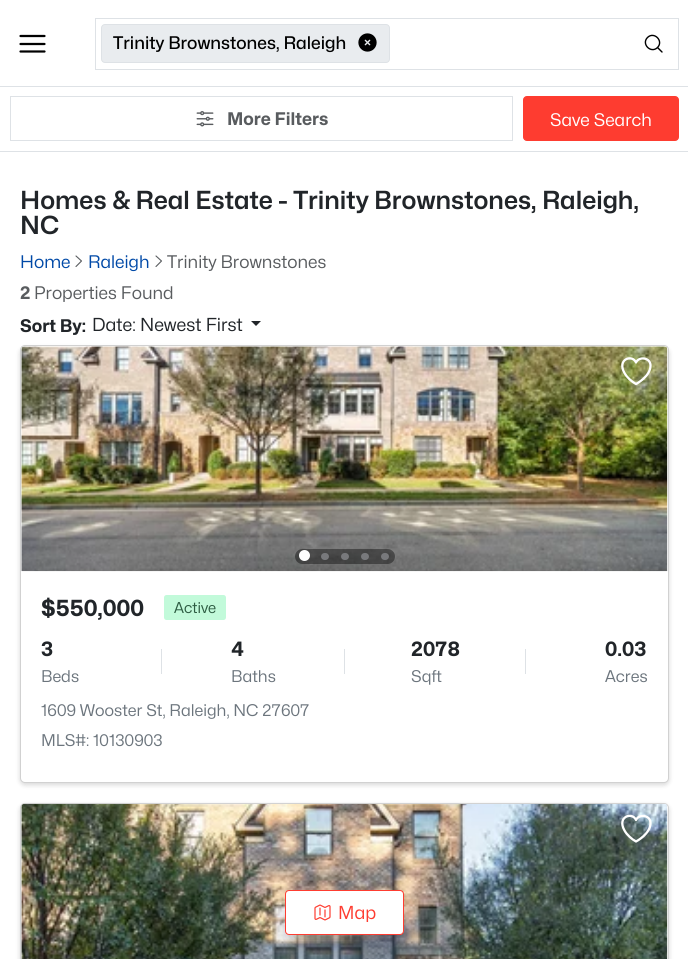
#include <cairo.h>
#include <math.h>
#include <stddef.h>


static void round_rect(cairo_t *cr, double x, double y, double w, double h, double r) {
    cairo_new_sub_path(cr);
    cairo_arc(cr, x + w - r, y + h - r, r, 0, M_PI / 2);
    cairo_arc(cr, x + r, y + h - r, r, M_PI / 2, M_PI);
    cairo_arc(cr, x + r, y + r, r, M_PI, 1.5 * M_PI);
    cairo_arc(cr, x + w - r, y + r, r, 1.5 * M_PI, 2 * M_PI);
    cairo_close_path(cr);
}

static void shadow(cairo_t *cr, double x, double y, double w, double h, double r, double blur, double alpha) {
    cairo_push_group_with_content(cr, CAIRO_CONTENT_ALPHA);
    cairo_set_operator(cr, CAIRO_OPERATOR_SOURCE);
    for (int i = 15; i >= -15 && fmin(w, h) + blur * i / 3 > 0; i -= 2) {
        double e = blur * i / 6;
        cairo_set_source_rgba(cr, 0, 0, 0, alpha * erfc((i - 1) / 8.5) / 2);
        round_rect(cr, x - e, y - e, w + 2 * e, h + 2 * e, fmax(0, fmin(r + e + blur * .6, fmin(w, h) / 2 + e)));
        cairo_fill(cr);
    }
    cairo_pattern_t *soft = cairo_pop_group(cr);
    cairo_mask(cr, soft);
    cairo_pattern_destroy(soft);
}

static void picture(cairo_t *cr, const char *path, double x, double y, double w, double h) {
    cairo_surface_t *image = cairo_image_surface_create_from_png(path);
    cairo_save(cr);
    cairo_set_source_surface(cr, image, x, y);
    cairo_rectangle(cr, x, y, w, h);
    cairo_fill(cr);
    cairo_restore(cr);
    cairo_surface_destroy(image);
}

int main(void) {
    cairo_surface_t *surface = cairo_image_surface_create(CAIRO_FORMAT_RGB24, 688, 959);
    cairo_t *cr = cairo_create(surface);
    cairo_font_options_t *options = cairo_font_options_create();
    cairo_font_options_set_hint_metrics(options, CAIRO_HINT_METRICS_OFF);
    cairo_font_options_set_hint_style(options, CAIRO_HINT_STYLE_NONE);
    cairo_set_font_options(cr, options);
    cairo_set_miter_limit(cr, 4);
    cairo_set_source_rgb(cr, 1, 1, 1);
    cairo_paint(cr);
    cairo_set_source_rgb(cr, 0.871, 0.886, 0.902);
    cairo_rectangle(cr, 0, 86, 688, 1);
    cairo_fill(cr);
    cairo_new_path(cr);
    cairo_move_to(cr, 20.5, 36);
    cairo_line_to(cr, 44.5, 36);
    cairo_move_to(cr, 20.5, 44);
    cairo_line_to(cr, 44.5, 44);
    cairo_move_to(cr, 20.5, 51.5);
    cairo_line_to(cr, 44.5, 51.5);
    cairo_set_source_rgb(cr, 0, 0, 0);
    cairo_set_line_width(cr, 2.2);
    cairo_set_line_cap(cr, CAIRO_LINE_CAP_ROUND);
    cairo_set_line_join(cr, CAIRO_LINE_JOIN_ROUND);
    cairo_stroke(cr);
    cairo_rectangle(cr, 95.5, 18.5, 583, 51);
    cairo_set_source_rgb(cr, 0.871, 0.886, 0.902);
    cairo_set_line_width(cr, 1);
    cairo_set_line_cap(cr, CAIRO_LINE_CAP_BUTT);
    cairo_set_line_join(cr, CAIRO_LINE_JOIN_MITER);
    cairo_stroke(cr);
    cairo_set_source_rgb(cr, 0.914, 0.925, 0.937);
    round_rect(cr, 101.5, 24.5, 288, 38, 3.5);
    cairo_fill_preserve(cr);
    cairo_set_source_rgb(cr, 0.871, 0.886, 0.902);
    cairo_stroke(cr);
    cairo_select_font_face(cr, "Mona Sans Medium", CAIRO_FONT_SLANT_NORMAL, CAIRO_FONT_WEIGHT_NORMAL);
    cairo_set_font_size(cr, 17.5);
    cairo_set_source_rgb(cr, 0, 0, 0);
    cairo_move_to(cr, 113, 49);
    cairo_show_text(cr, "Trinity Brownstones, Raleigh");
    picture(cr, "img1.png", 358, 33, 19, 19);
    cairo_new_path(cr);
    cairo_move_to(cr, 662, 52);
    cairo_line_to(cr, 657.5, 47.5);
    cairo_move_to(cr, 657.5, 47.5);
    cairo_curve_to(cr, 664, 41, 654, 31, 647.5, 37.5);
    cairo_curve_to(cr, 641, 44, 651, 54, 657.5, 47.5);
    cairo_close_path(cr);
    cairo_set_line_width(cr, 1.4);
    cairo_set_line_cap(cr, CAIRO_LINE_CAP_ROUND);
    cairo_set_line_join(cr, CAIRO_LINE_JOIN_ROUND);
    cairo_stroke(cr);
    cairo_set_source_rgb(cr, 0.871, 0.886, 0.902);
    cairo_rectangle(cr, 0, 151, 688, 1);
    cairo_fill(cr);
    cairo_rectangle(cr, 10.5, 96.5, 502, 44);
    cairo_set_line_width(cr, 1);
    cairo_set_line_cap(cr, CAIRO_LINE_CAP_BUTT);
    cairo_set_line_join(cr, CAIRO_LINE_JOIN_MITER);
    cairo_stroke(cr);
    picture(cr, "img2.png", 196, 111, 18, 16);
    cairo_select_font_face(cr, "Mona Sans", CAIRO_FONT_SLANT_NORMAL, CAIRO_FONT_WEIGHT_BOLD);
    cairo_set_source_rgb(cr, 0.349, 0.361, 0.373);
    cairo_move_to(cr, 227, 125);
    cairo_show_text(cr, "More Filters");
    cairo_set_source_rgb(cr, 0.996, 0.235, 0.188);
    round_rect(cr, 523.5, 96.5, 155, 44, 3.5);
    cairo_fill_preserve(cr);
    cairo_stroke(cr);
    cairo_select_font_face(cr, "Mona Sans", CAIRO_FONT_SLANT_NORMAL, CAIRO_FONT_WEIGHT_NORMAL);
    cairo_set_source_rgb(cr, 1, 1, 1);
    cairo_move_to(cr, 550, 126);
    cairo_show_text(cr, "Save Search");
    cairo_select_font_face(cr, "Mona Sans SemiBold", CAIRO_FONT_SLANT_NORMAL, CAIRO_FONT_WEIGHT_NORMAL);
    cairo_set_font_size(cr, 25);
    cairo_set_source_rgb(cr, 0.129, 0.145, 0.161);
    cairo_move_to(cr, 20, 209);
    cairo_show_text(cr, "Homes & Real Estate - Trinity Brownstones, Raleigh,");
    cairo_move_to(cr, 20, 234);
    cairo_show_text(cr, "NC");
    cairo_select_font_face(cr, "Mona Sans", CAIRO_FONT_SLANT_NORMAL, CAIRO_FONT_WEIGHT_NORMAL);
    cairo_set_font_size(cr, 17.5);
    cairo_set_source_rgb(cr, 0, 0.286, 0.655);
    cairo_move_to(cr, 20, 268);
    cairo_show_text(cr, "Home");
    cairo_new_path(cr);
    cairo_move_to(cr, 76, 256);
    cairo_line_to(cr, 81.5, 261);
    cairo_line_to(cr, 76, 266.5);
    cairo_set_source_rgb(cr, 0.349, 0.361, 0.373);
    cairo_set_line_width(cr, 1.1);
    cairo_set_line_cap(cr, CAIRO_LINE_CAP_ROUND);
    cairo_set_line_join(cr, CAIRO_LINE_JOIN_ROUND);
    cairo_stroke(cr);
    cairo_set_source_rgb(cr, 0, 0.286, 0.655);
    cairo_move_to(cr, 88, 268);
    cairo_show_text(cr, "Raleigh");
    cairo_new_path(cr);
    cairo_move_to(cr, 156, 256);
    cairo_line_to(cr, 161.5, 261);
    cairo_line_to(cr, 156, 266.5);
    cairo_set_source_rgb(cr, 0.349, 0.361, 0.373);
    cairo_stroke(cr);
    cairo_move_to(cr, 167, 268);
    cairo_show_text(cr, "Trinity Brownstones");
    cairo_select_font_face(cr, "Mona Sans", CAIRO_FONT_SLANT_NORMAL, CAIRO_FONT_WEIGHT_BOLD);
    cairo_move_to(cr, 20, 299);
    cairo_show_text(cr, "2");
    cairo_select_font_face(cr, "Mona Sans", CAIRO_FONT_SLANT_NORMAL, CAIRO_FONT_WEIGHT_NORMAL);
    cairo_move_to(cr, 34, 299);
    cairo_show_text(cr, "Properties Found");
    cairo_select_font_face(cr, "Mona Sans", CAIRO_FONT_SLANT_NORMAL, CAIRO_FONT_WEIGHT_BOLD);
    cairo_set_source_rgb(cr, 0.129, 0.145, 0.161);
    cairo_move_to(cr, 20, 332);
    cairo_show_text(cr, "Sort By:");
    cairo_select_font_face(cr, "Mona Sans", CAIRO_FONT_SLANT_NORMAL, CAIRO_FONT_WEIGHT_NORMAL);
    cairo_set_font_size(cr, 18);
    cairo_move_to(cr, 92, 331);
    cairo_show_text(cr, "Date: Newest First");
    cairo_new_path(cr);
    cairo_move_to(cr, 251, 321);
    cairo_line_to(cr, 261, 321);
    cairo_line_to(cr, 256, 326);
    cairo_close_path(cr);
    cairo_fill(cr);
    cairo_set_source_rgb(cr, 0, 0, 0);
    shadow(cr, 20, 348, 649, 437, 5, 2.5, 0.16);
    cairo_set_source_rgb(cr, 1, 1, 1);
    round_rect(cr, 20, 345, 649, 438, 5);
    cairo_fill(cr);
    round_rect(cr, 20.5, 345.5, 648, 437, 4.5);
    cairo_set_source_rgba(cr, 0, 0, 0, 0.18);
    cairo_set_line_width(cr, 1);
    cairo_set_line_cap(cr, CAIRO_LINE_CAP_BUTT);
    cairo_set_line_join(cr, CAIRO_LINE_JOIN_MITER);
    cairo_stroke(cr);
    cairo_set_source_rgb(cr, 0.98, 0.98, 0.98);
    cairo_new_path(cr);
    cairo_move_to(cr, 25, 346);
    cairo_line_to(cr, 664, 346);
    cairo_curve_to(cr, 666, 346, 668, 348, 668, 350);
    cairo_line_to(cr, 668, 571);
    cairo_line_to(cr, 21, 571);
    cairo_line_to(cr, 21, 350);
    cairo_curve_to(cr, 21, 348, 23, 346, 25, 346);
    cairo_close_path(cr);
    cairo_fill(cr);
    picture(cr, "img3.png", 21, 346, 647, 226);
    cairo_set_source_rgba(cr, 0, 0, 0, 0.4);
    round_rect(cr, 295, 549, 100, 15, 7.5);
    cairo_fill(cr);
    cairo_set_source_rgb(cr, 1, 1, 1);
    cairo_arc(cr, 304.5, 555.5, 5.5, 0, 2 * M_PI);
    cairo_fill(cr);
    cairo_set_source_rgb(cr, 0.471, 0.475, 0.486);
    round_rect(cr, 321, 553, 8, 7, 3.5);
    cairo_fill(cr);
    round_rect(cr, 341, 553, 8, 7, 3.5);
    cairo_fill(cr);
    round_rect(cr, 361, 553, 8, 7, 3.5);
    cairo_fill(cr);
    round_rect(cr, 381, 553, 8, 7, 3.5);
    cairo_fill(cr);
    cairo_new_path(cr);
    cairo_move_to(cr, 650.5, 365.5);
    cairo_curve_to(cr, 650.5, 357.5, 639, 356, 636, 362.5);
    cairo_curve_to(cr, 632.5, 354, 616.5, 359, 624.5, 373);
    cairo_curve_to(cr, 627, 377.5, 631.5, 381.5, 636, 384);
    cairo_curve_to(cr, 636, 384, 650.5, 376.5, 650.5, 365.5);
    cairo_close_path(cr);
    cairo_set_source_rgb(cr, 1, 1, 1);
    cairo_set_line_width(cr, 2.3);
    cairo_set_line_cap(cr, CAIRO_LINE_CAP_ROUND);
    cairo_set_line_join(cr, CAIRO_LINE_JOIN_ROUND);
    cairo_stroke(cr);
    cairo_select_font_face(cr, "Mona Sans", CAIRO_FONT_SLANT_NORMAL, CAIRO_FONT_WEIGHT_BOLD);
    cairo_set_font_size(cr, 22.5);
    cairo_set_source_rgb(cr, 0.129, 0.145, 0.161);
    cairo_move_to(cr, 41, 616);
    cairo_show_text(cr, "$550,000");
    cairo_set_source_rgb(cr, 0.761, 0.98, 0.855);
    round_rect(cr, 164, 595, 62, 25, 2.5);
    cairo_fill(cr);
    cairo_select_font_face(cr, "Mona Sans", CAIRO_FONT_SLANT_NORMAL, CAIRO_FONT_WEIGHT_NORMAL);
    cairo_set_font_size(cr, 15);
    cairo_set_source_rgb(cr, 0.176, 0.361, 0.259);
    cairo_move_to(cr, 174, 613);
    cairo_show_text(cr, "Active");
    cairo_select_font_face(cr, "Mona Sans", CAIRO_FONT_SLANT_NORMAL, CAIRO_FONT_WEIGHT_BOLD);
    cairo_set_font_size(cr, 20);
    cairo_set_source_rgb(cr, 0.129, 0.145, 0.161);
    cairo_move_to(cr, 41, 656);
    cairo_show_text(cr, "3");
    cairo_set_source_rgb(cr, 0.871, 0.886, 0.902);
    cairo_rectangle(cr, 161, 649, 1, 25);
    cairo_fill(cr);
    cairo_select_font_face(cr, "Mona Sans", CAIRO_FONT_SLANT_NORMAL, CAIRO_FONT_WEIGHT_NORMAL);
    cairo_set_font_size(cr, 16.25);
    cairo_set_source_rgb(cr, 0.424, 0.459, 0.49);
    cairo_move_to(cr, 41, 682);
    cairo_show_text(cr, "Beds");
    cairo_select_font_face(cr, "Mona Sans", CAIRO_FONT_SLANT_NORMAL, CAIRO_FONT_WEIGHT_BOLD);
    cairo_set_font_size(cr, 20);
    cairo_set_source_rgb(cr, 0.129, 0.145, 0.161);
    cairo_move_to(cr, 231, 656);
    cairo_show_text(cr, "4");
    cairo_select_font_face(cr, "Mona Sans", CAIRO_FONT_SLANT_NORMAL, CAIRO_FONT_WEIGHT_NORMAL);
    cairo_set_font_size(cr, 16.25);
    cairo_set_source_rgb(cr, 0.424, 0.459, 0.49);
    cairo_move_to(cr, 231, 682);
    cairo_show_text(cr, "Baths");
    cairo_set_source_rgb(cr, 0.871, 0.886, 0.902);
    cairo_rectangle(cr, 344, 649, 1, 25);
    cairo_fill(cr);
    cairo_select_font_face(cr, "Mona Sans", CAIRO_FONT_SLANT_NORMAL, CAIRO_FONT_WEIGHT_BOLD);
    cairo_set_font_size(cr, 20);
    cairo_set_source_rgb(cr, 0.129, 0.145, 0.161);
    cairo_move_to(cr, 411, 656);
    cairo_show_text(cr, "2078");
    cairo_select_font_face(cr, "Mona Sans", CAIRO_FONT_SLANT_NORMAL, CAIRO_FONT_WEIGHT_NORMAL);
    cairo_set_font_size(cr, 16.25);
    cairo_set_source_rgb(cr, 0.424, 0.459, 0.49);
    cairo_move_to(cr, 411, 682);
    cairo_show_text(cr, "Sqft");
    cairo_set_source_rgb(cr, 0.871, 0.886, 0.902);
    cairo_rectangle(cr, 525, 649, 1, 25);
    cairo_fill(cr);
    cairo_select_font_face(cr, "Mona Sans", CAIRO_FONT_SLANT_NORMAL, CAIRO_FONT_WEIGHT_BOLD);
    cairo_set_font_size(cr, 20);
    cairo_set_source_rgb(cr, 0.129, 0.145, 0.161);
    cairo_move_to(cr, 605, 656);
    cairo_show_text(cr, "0.03");
    cairo_select_font_face(cr, "Mona Sans", CAIRO_FONT_SLANT_NORMAL, CAIRO_FONT_WEIGHT_NORMAL);
    cairo_set_font_size(cr, 16.25);
    cairo_set_source_rgb(cr, 0.424, 0.459, 0.49);
    cairo_move_to(cr, 605, 682);
    cairo_show_text(cr, "Acres");
    cairo_move_to(cr, 41, 716);
    cairo_show_text(cr, "1609 Wooster St, Raleigh, NC 27607");
    cairo_move_to(cr, 41, 746);
    cairo_show_text(cr, "MLS#: 10130903");
    cairo_set_source_rgb(cr, 0, 0, 0);
    shadow(cr, 20, 805, 649, 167, 5, 2.5, 0.16);
    round_rect(cr, 20.5, 803.5, 648, 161, 4.5);
    cairo_set_source_rgb(cr, 0.824, 0.824, 0.824);
    cairo_set_line_width(cr, 1);
    cairo_set_line_cap(cr, CAIRO_LINE_CAP_BUTT);
    cairo_set_line_join(cr, CAIRO_LINE_JOIN_MITER);
    cairo_stroke(cr);
    cairo_set_source_rgb(cr, 0.98, 0.98, 0.98);
    cairo_new_path(cr);
    cairo_move_to(cr, 25, 804);
    cairo_line_to(cr, 664, 804);
    cairo_curve_to(cr, 666, 804, 668, 806, 668, 808);
    cairo_line_to(cr, 668, 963);
    cairo_line_to(cr, 21, 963);
    cairo_line_to(cr, 21, 808);
    cairo_curve_to(cr, 21, 806, 23, 804, 25, 804);
    cairo_close_path(cr);
    cairo_fill(cr);
    picture(cr, "img4.png", 21, 804, 647, 155);
    cairo_new_path(cr);
    cairo_move_to(cr, 650.5, 823);
    cairo_curve_to(cr, 650.5, 815, 639, 813.5, 636, 820);
    cairo_curve_to(cr, 632.5, 811.5, 616.5, 816.5, 624.5, 830.5);
    cairo_curve_to(cr, 627, 835, 631.5, 839, 636, 841.5);
    cairo_curve_to(cr, 636, 841.5, 650.5, 834, 650.5, 823);
    cairo_close_path(cr);
    cairo_set_source_rgb(cr, 1, 1, 1);
    cairo_set_line_width(cr, 2.3);
    cairo_set_line_cap(cr, CAIRO_LINE_CAP_ROUND);
    cairo_set_line_join(cr, CAIRO_LINE_JOIN_ROUND);
    cairo_stroke(cr);
    cairo_set_source_rgb(cr, 0, 0, 0);
    shadow(cr, 295, 910, 99, 25, 0, 10, 0.3);
    cairo_set_source_rgb(cr, 0.196, 0.196, 0.365);
    shadow(cr, 291, 913, 107, 32, 0, 17, 0.25);
    cairo_set_source_rgb(cr, 1, 1, 1);
    round_rect(cr, 285.5, 890.5, 118, 44, 3.5);
    cairo_fill_preserve(cr);
    cairo_set_source_rgb(cr, 0.996, 0.235, 0.188);
    cairo_set_line_width(cr, 1);
    cairo_set_line_cap(cr, CAIRO_LINE_CAP_BUTT);
    cairo_set_line_join(cr, CAIRO_LINE_JOIN_MITER);
    cairo_stroke(cr);
    picture(cr, "img5.png", 314, 904, 17, 17);
    cairo_set_font_size(cr, 18);
    cairo_move_to(cr, 338, 919);
    cairo_show_text(cr, "Map");
    cairo_surface_write_to_png(surface, "page.png");
    cairo_font_options_destroy(options);
    cairo_destroy(cr);
    cairo_surface_destroy(surface);
    return 0;
}
